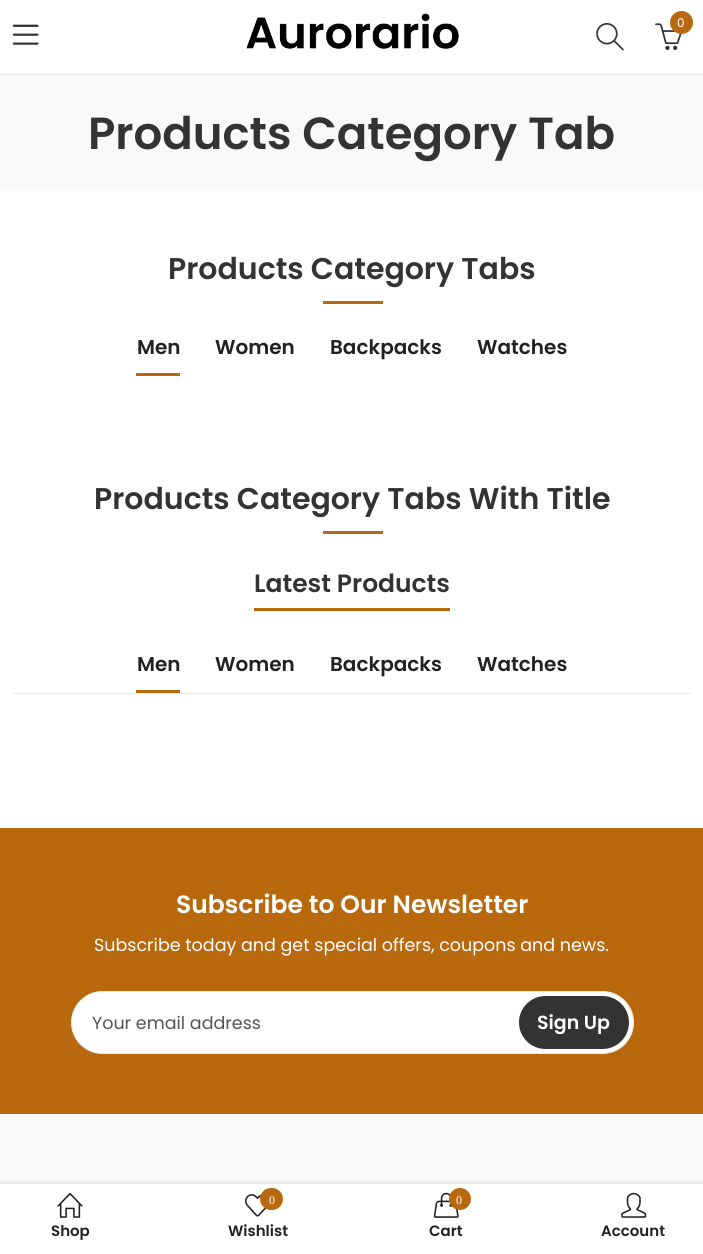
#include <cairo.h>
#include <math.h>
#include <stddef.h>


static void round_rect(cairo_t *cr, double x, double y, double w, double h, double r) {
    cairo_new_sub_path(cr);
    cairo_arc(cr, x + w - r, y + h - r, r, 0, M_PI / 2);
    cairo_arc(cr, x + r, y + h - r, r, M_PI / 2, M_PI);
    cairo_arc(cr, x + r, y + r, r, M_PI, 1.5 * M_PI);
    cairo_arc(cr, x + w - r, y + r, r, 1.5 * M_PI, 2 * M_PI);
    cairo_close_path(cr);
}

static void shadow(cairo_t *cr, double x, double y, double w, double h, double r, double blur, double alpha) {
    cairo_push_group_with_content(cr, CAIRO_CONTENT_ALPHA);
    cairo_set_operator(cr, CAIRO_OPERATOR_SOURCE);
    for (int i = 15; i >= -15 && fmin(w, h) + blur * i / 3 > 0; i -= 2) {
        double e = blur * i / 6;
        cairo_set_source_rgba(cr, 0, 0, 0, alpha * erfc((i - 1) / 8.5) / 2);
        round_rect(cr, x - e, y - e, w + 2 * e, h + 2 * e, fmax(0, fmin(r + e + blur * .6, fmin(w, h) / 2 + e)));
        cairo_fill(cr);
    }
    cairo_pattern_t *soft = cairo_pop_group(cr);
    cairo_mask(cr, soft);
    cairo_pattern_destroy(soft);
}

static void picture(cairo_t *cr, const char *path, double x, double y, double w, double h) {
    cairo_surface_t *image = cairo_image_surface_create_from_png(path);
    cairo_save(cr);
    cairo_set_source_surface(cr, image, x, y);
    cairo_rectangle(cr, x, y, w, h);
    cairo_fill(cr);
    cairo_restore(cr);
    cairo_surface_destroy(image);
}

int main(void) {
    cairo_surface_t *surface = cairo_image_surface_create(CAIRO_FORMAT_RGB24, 703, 1254);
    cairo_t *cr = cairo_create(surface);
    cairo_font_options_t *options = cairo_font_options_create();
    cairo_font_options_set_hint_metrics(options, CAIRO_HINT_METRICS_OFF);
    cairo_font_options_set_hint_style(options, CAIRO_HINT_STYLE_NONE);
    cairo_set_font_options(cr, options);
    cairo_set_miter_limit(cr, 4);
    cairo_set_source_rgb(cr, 1, 1, 1);
    cairo_paint(cr);
    cairo_set_source_rgb(cr, 0.914, 0.914, 0.914);
    cairo_rectangle(cr, 0, 74, 703, 1);
    cairo_fill(cr);
    picture(cr, "img1.png", 246, 13, 213, 36);
    picture(cr, "img2.png", 655, 23, 27, 27);
    cairo_set_source_rgb(cr, 0.722, 0.412, 0.051);
    cairo_arc(cr, 681.5, 22.5, 11.5, 0, 2 * M_PI);
    cairo_fill(cr);
    cairo_select_font_face(cr, "Poppins", CAIRO_FONT_SLANT_NORMAL, CAIRO_FONT_WEIGHT_NORMAL);
    cairo_set_font_size(cr, 12);
    cairo_set_source_rgb(cr, 1, 1, 1);
    cairo_move_to(cr, 677, 27);
    cairo_show_text(cr, "0");
    picture(cr, "img3.png", 596, 23, 28, 28);
    picture(cr, "img4.png", 12, 24, 27, 21);
    cairo_set_source_rgb(cr, 0.973, 0.973, 0.973);
    cairo_rectangle(cr, 0, 75, 703, 116);
    cairo_fill(cr);
    cairo_select_font_face(cr, "Poppins SemiBold", CAIRO_FONT_SLANT_NORMAL, CAIRO_FONT_WEIGHT_NORMAL);
    cairo_set_font_size(cr, 45);
    cairo_set_source_rgb(cr, 0.2, 0.2, 0.2);
    cairo_move_to(cr, 88, 149);
    cairo_show_text(cr, "Products Category Tab");
    cairo_set_font_size(cr, 30);
    cairo_move_to(cr, 168, 279);
    cairo_show_text(cr, "Products Category Tabs");
    cairo_set_source_rgb(cr, 0.722, 0.412, 0.051);
    cairo_rectangle(cr, 323, 301, 60, 3);
    cairo_fill(cr);
    cairo_set_font_size(cr, 20);
    cairo_set_source_rgb(cr, 0.129, 0.129, 0.129);
    cairo_move_to(cr, 137, 354);
    cairo_show_text(cr, "Men");
    cairo_set_source_rgb(cr, 0.722, 0.412, 0.051);
    cairo_rectangle(cr, 136, 373, 44, 3);
    cairo_fill(cr);
    cairo_set_source_rgb(cr, 0.129, 0.129, 0.129);
    cairo_move_to(cr, 215, 354);
    cairo_show_text(cr, "Women");
    cairo_move_to(cr, 330, 354);
    cairo_show_text(cr, "Backpacks");
    cairo_move_to(cr, 477, 354);
    cairo_show_text(cr, "Watches");
    cairo_set_font_size(cr, 30);
    cairo_set_source_rgb(cr, 0.2, 0.2, 0.2);
    cairo_move_to(cr, 94, 509);
    cairo_show_text(cr, "Products Category Tabs With Title");
    cairo_set_source_rgb(cr, 0.722, 0.412, 0.051);
    cairo_rectangle(cr, 323, 531, 60, 3);
    cairo_fill(cr);
    cairo_set_source_rgb(cr, 0.914, 0.914, 0.914);
    cairo_rectangle(cr, 13, 693, 678, 1);
    cairo_fill(cr);
    cairo_set_font_size(cr, 25);
    cairo_set_source_rgb(cr, 0.2, 0.2, 0.2);
    cairo_move_to(cr, 254, 592);
    cairo_show_text(cr, "Latest Products");
    cairo_set_source_rgb(cr, 0.722, 0.412, 0.051);
    cairo_rectangle(cr, 254, 608, 196, 3);
    cairo_fill(cr);
    cairo_set_font_size(cr, 20);
    cairo_set_source_rgb(cr, 0.129, 0.129, 0.129);
    cairo_move_to(cr, 137, 671);
    cairo_show_text(cr, "Men");
    cairo_set_source_rgb(cr, 0.722, 0.412, 0.051);
    cairo_rectangle(cr, 136, 690, 44, 3);
    cairo_fill(cr);
    cairo_set_source_rgb(cr, 0.129, 0.129, 0.129);
    cairo_move_to(cr, 215, 671);
    cairo_show_text(cr, "Women");
    cairo_move_to(cr, 330, 671);
    cairo_show_text(cr, "Backpacks");
    cairo_move_to(cr, 477, 671);
    cairo_show_text(cr, "Watches");
    cairo_set_source_rgb(cr, 0.722, 0.412, 0.051);
    cairo_rectangle(cr, 0, 828, 703, 286);
    cairo_fill(cr);
    cairo_set_font_size(cr, 25);
    cairo_set_source_rgb(cr, 1, 1, 1);
    cairo_move_to(cr, 176, 913);
    cairo_show_text(cr, "Subscribe to Our Newsletter");
    cairo_select_font_face(cr, "Poppins", CAIRO_FONT_SLANT_NORMAL, CAIRO_FONT_WEIGHT_NORMAL);
    cairo_set_font_size(cr, 17.5);
    cairo_move_to(cr, 94, 951);
    cairo_show_text(cr, "Subscribe today and get special offers, coupons and news.");
    round_rect(cr, 71.5, 991.5, 562, 62, 31);
    cairo_fill_preserve(cr);
    cairo_set_source_rgb(cr, 0.914, 0.914, 0.914);
    cairo_set_line_width(cr, 1);
    cairo_stroke(cr);
    cairo_set_source_rgb(cr, 0.329, 0.329, 0.329);
    cairo_move_to(cr, 92, 1029);
    cairo_show_text(cr, "Your email address");
    cairo_set_source_rgb(cr, 0.2, 0.2, 0.2);
    round_rect(cr, 519, 996, 110, 53, 26.5);
    cairo_fill(cr);
    cairo_select_font_face(cr, "Poppins SemiBold", CAIRO_FONT_SLANT_NORMAL, CAIRO_FONT_WEIGHT_NORMAL);
    cairo_set_font_size(cr, 19);
    cairo_set_source_rgb(cr, 1, 1, 1);
    cairo_move_to(cr, 537, 1029);
    cairo_show_text(cr, "Sign Up");
    cairo_set_source_rgb(cr, 0.973, 0.973, 0.973);
    cairo_rectangle(cr, 0, 1114, 703, 70);
    cairo_fill(cr);
    cairo_set_source_rgb(cr, 0, 0, 0);
    shadow(cr, 0, 1184, 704, 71, 0, 2.5, 0.15);
    cairo_set_source_rgb(cr, 1, 1, 1);
    cairo_rectangle(cr, 0, 1184, 703, 70);
    cairo_fill(cr);
    picture(cr, "img5.png", 57, 1192, 26, 26);
    cairo_set_font_size(cr, 15);
    cairo_set_source_rgb(cr, 0.129, 0.129, 0.129);
    cairo_move_to(cr, 51, 1236);
    cairo_show_text(cr, "Shop");
    picture(cr, "img6.png", 245, 1194, 22, 23);
    cairo_set_source_rgb(cr, 0.722, 0.412, 0.051);
    round_rect(cr, 260, 1188, 23, 22, 11);
    cairo_fill(cr);
    cairo_select_font_face(cr, "Liberation Serif", CAIRO_FONT_SLANT_NORMAL, CAIRO_FONT_WEIGHT_NORMAL);
    cairo_set_font_size(cr, 12);
    cairo_set_source_rgb(cr, 1, 1, 1);
    cairo_move_to(cr, 269, 1204);
    cairo_show_text(cr, "0");
    cairo_select_font_face(cr, "Poppins SemiBold", CAIRO_FONT_SLANT_NORMAL, CAIRO_FONT_WEIGHT_NORMAL);
    cairo_set_font_size(cr, 15);
    cairo_set_source_rgb(cr, 0.129, 0.129, 0.129);
    cairo_move_to(cr, 228, 1236);
    cairo_show_text(cr, "Wishlist");
    picture(cr, "img7.png", 433, 1192, 26, 26);
    cairo_set_source_rgb(cr, 0.722, 0.412, 0.051);
    cairo_arc(cr, 460, 1199, 11, 0, 2 * M_PI);
    cairo_fill(cr);
    cairo_select_font_face(cr, "Liberation Serif", CAIRO_FONT_SLANT_NORMAL, CAIRO_FONT_WEIGHT_NORMAL);
    cairo_set_font_size(cr, 12);
    cairo_set_source_rgb(cr, 1, 1, 1);
    cairo_move_to(cr, 456, 1204);
    cairo_show_text(cr, "0");
    cairo_select_font_face(cr, "Poppins SemiBold", CAIRO_FONT_SLANT_NORMAL, CAIRO_FONT_WEIGHT_NORMAL);
    cairo_set_font_size(cr, 15);
    cairo_set_source_rgb(cr, 0.129, 0.129, 0.129);
    cairo_move_to(cr, 429, 1236);
    cairo_show_text(cr, "Cart");
    picture(cr, "img8.png", 621, 1192, 26, 26);
    cairo_move_to(cr, 601, 1236);
    cairo_show_text(cr, "Account");
    cairo_surface_write_to_png(surface, "page.png");
    cairo_font_options_destroy(options);
    cairo_destroy(cr);
    cairo_surface_destroy(surface);
    return 0;
}
